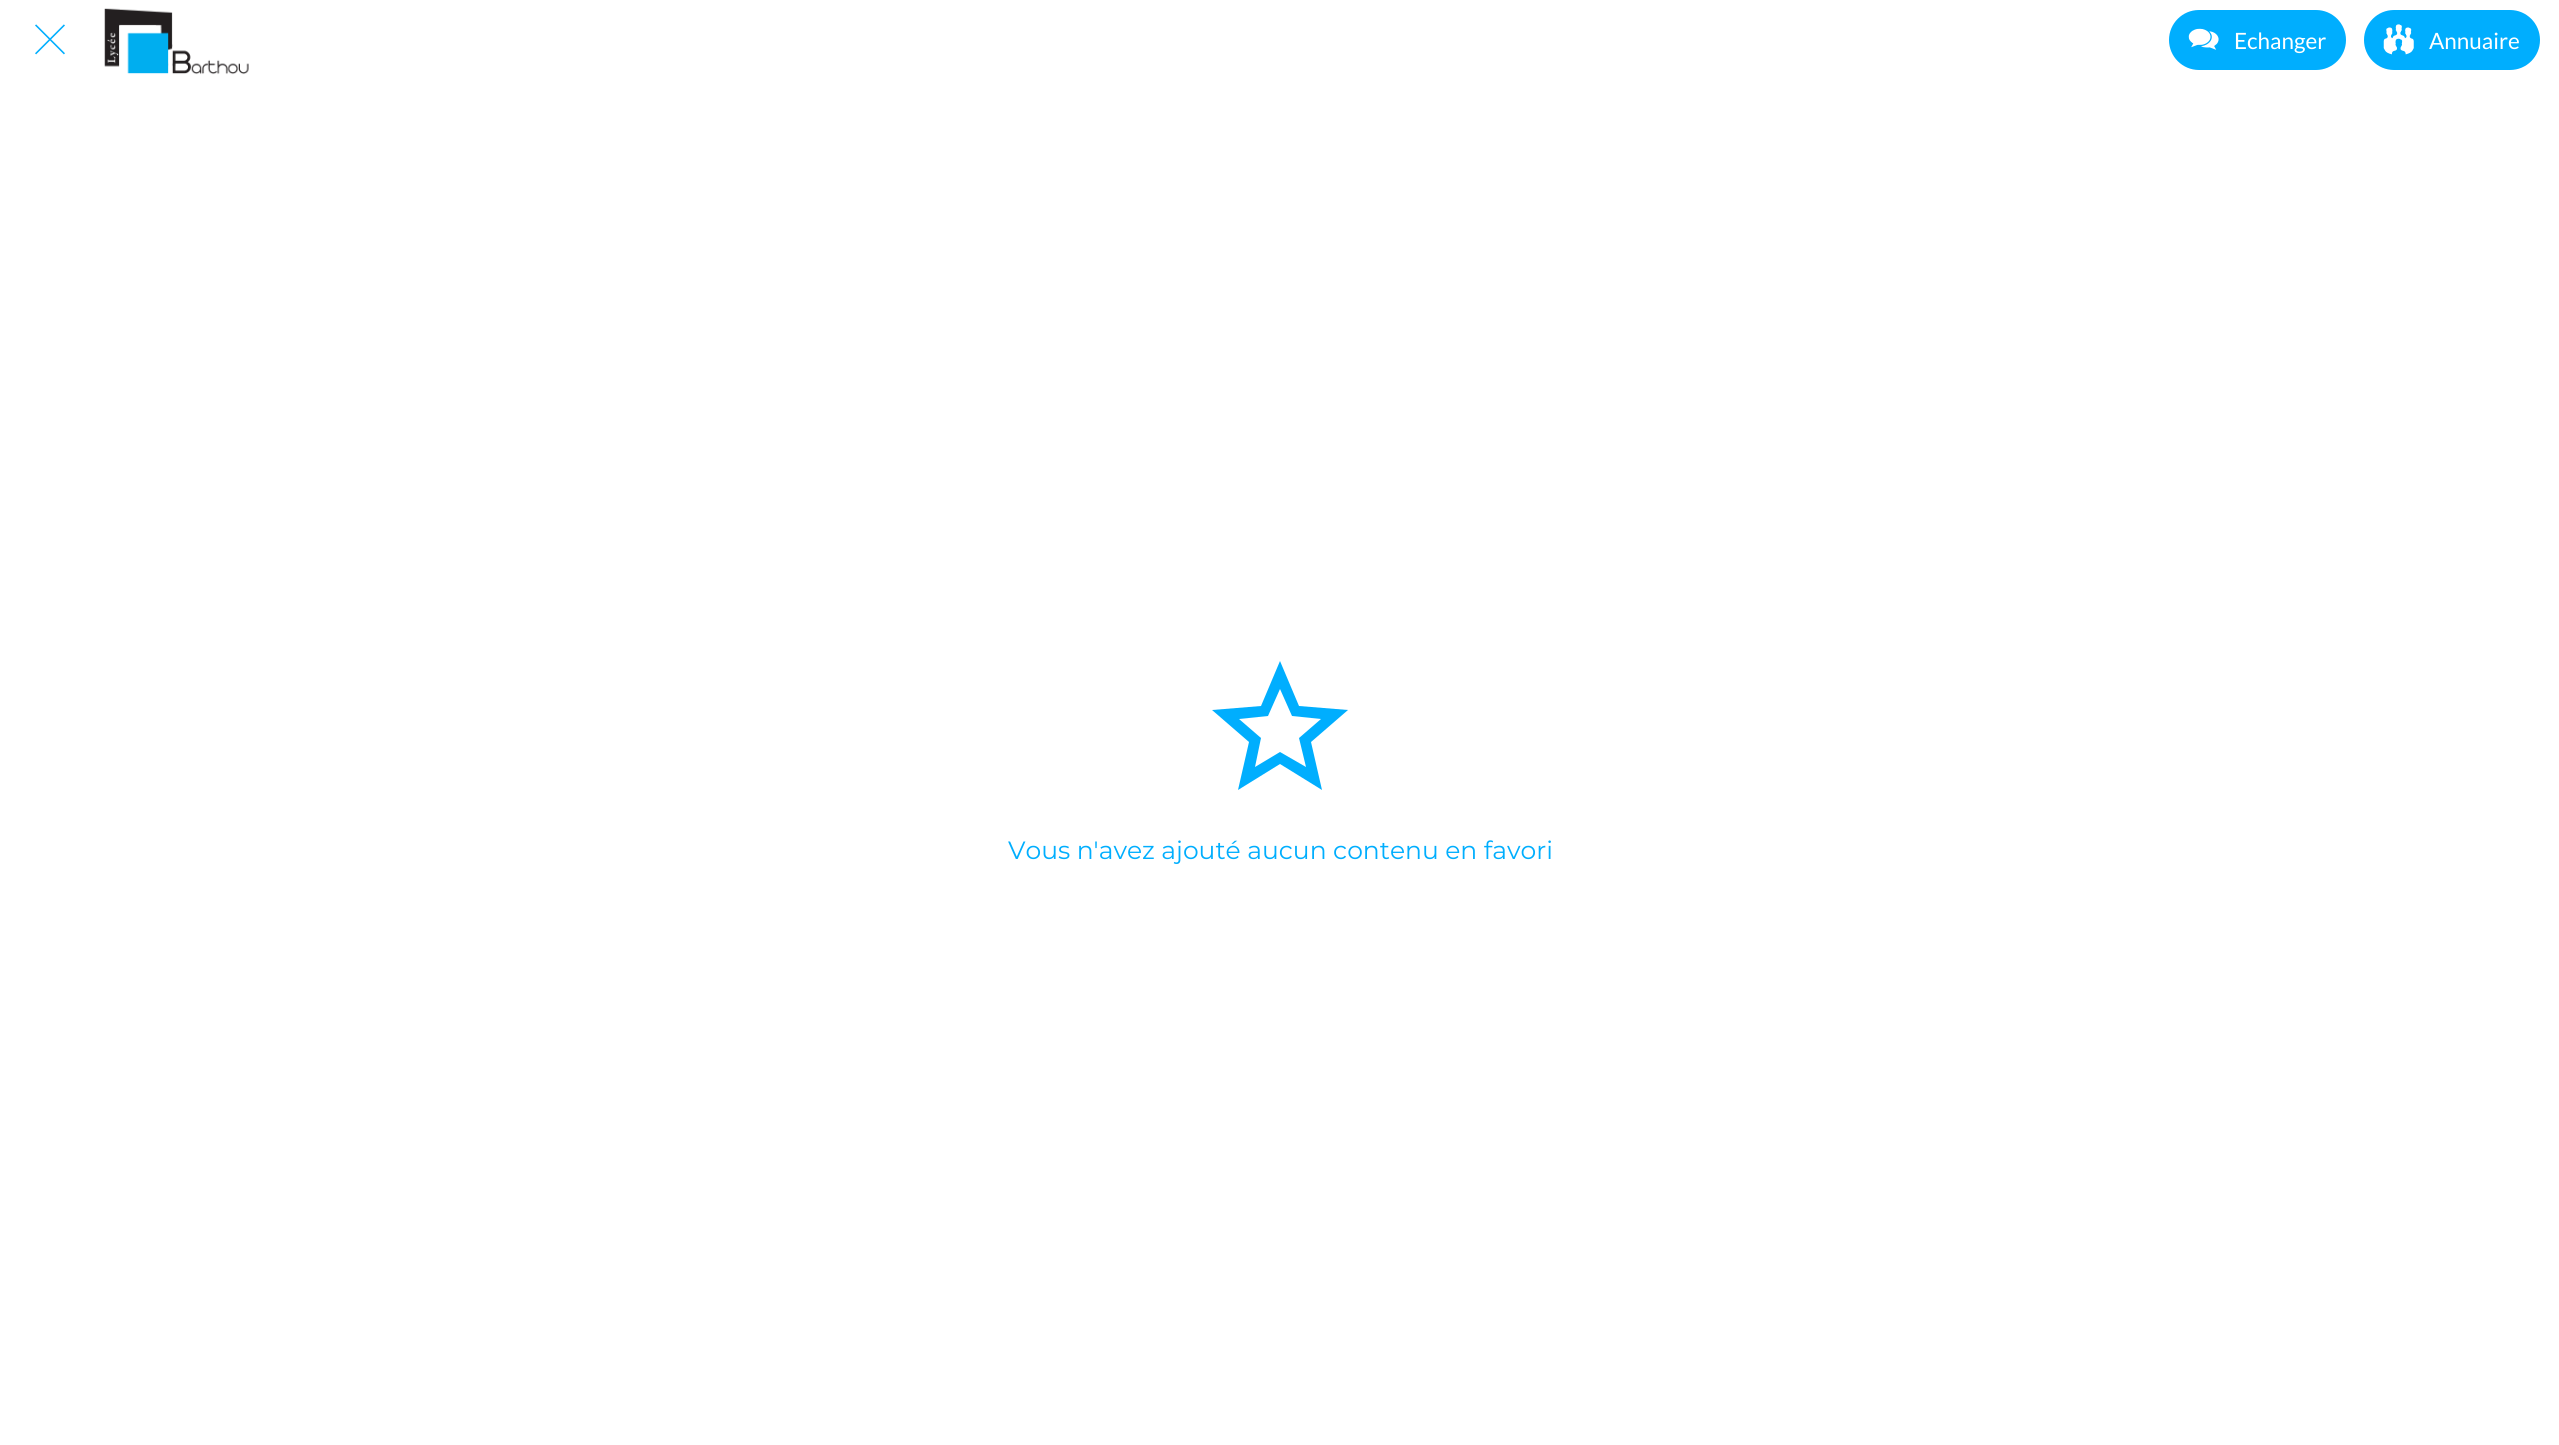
#include <cairo.h>
#include <math.h>
#include <stddef.h>


static void round_rect(cairo_t *cr, double x, double y, double w, double h, double r) {
    cairo_new_sub_path(cr);
    cairo_arc(cr, x + w - r, y + h - r, r, 0, M_PI / 2);
    cairo_arc(cr, x + r, y + h - r, r, M_PI / 2, M_PI);
    cairo_arc(cr, x + r, y + r, r, M_PI, 1.5 * M_PI);
    cairo_arc(cr, x + w - r, y + r, r, 1.5 * M_PI, 2 * M_PI);
    cairo_close_path(cr);
}

static void picture(cairo_t *cr, const char *path, double x, double y, double w, double h) {
    cairo_surface_t *image = cairo_image_surface_create_from_png(path);
    cairo_save(cr);
    cairo_set_source_surface(cr, image, x, y);
    cairo_rectangle(cr, x, y, w, h);
    cairo_fill(cr);
    cairo_restore(cr);
    cairo_surface_destroy(image);
}

int main(void) {
    cairo_surface_t *surface = cairo_image_surface_create(CAIRO_FORMAT_RGB24, 2559, 1445);
    cairo_t *cr = cairo_create(surface);
    cairo_font_options_t *options = cairo_font_options_create();
    cairo_font_options_set_hint_metrics(options, CAIRO_HINT_METRICS_OFF);
    cairo_font_options_set_hint_style(options, CAIRO_HINT_STYLE_NONE);
    cairo_set_font_options(cr, options);
    cairo_set_miter_limit(cr, 4);
    cairo_set_source_rgb(cr, 1, 1, 1);
    cairo_paint(cr);
    picture(cr, "img1.png", 35, 24, 30, 31);
    picture(cr, "img2.png", 104, 8, 145, 67);
    cairo_set_source_rgb(cr, 0, 0.682, 0.996);
    round_rect(cr, 2169, 10, 177, 60, 30);
    cairo_fill(cr);
    picture(cr, "img3.png", 2188, 28, 31, 22);
    cairo_select_font_face(cr, "Lato", CAIRO_FONT_SLANT_NORMAL, CAIRO_FONT_WEIGHT_NORMAL);
    cairo_set_font_size(cr, 22.5);
    cairo_set_source_rgb(cr, 1, 1, 1);
    cairo_move_to(cr, 2234, 49);
    cairo_show_text(cr, "Echanger");
    cairo_set_source_rgb(cr, 0, 0.682, 0.996);
    round_rect(cr, 2364, 10, 176, 60, 30);
    cairo_fill(cr);
    picture(cr, "img4.png", 2383, 24, 31, 31);
    cairo_set_source_rgb(cr, 1, 1, 1);
    cairo_move_to(cr, 2429, 49);
    cairo_show_text(cr, "Annuaire");
    cairo_set_source_rgb(cr, 0, 0.682, 0.996);
    cairo_new_path(cr);
    cairo_move_to(cr, 1348, 710);
    cairo_line_to(cr, 1299, 706);
    cairo_line_to(cr, 1280, 661);
    cairo_line_to(cr, 1261, 706);
    cairo_line_to(cr, 1212, 710);
    cairo_line_to(cr, 1249, 742);
    cairo_line_to(cr, 1238, 790);
    cairo_line_to(cr, 1280, 764);
    cairo_line_to(cr, 1322, 790);
    cairo_line_to(cr, 1311, 742);
    cairo_close_path(cr);
    cairo_move_to(cr, 1280, 752);
    cairo_line_to(cr, 1255, 767);
    cairo_line_to(cr, 1261, 738);
    cairo_line_to(cr, 1239, 719);
    cairo_line_to(cr, 1268, 716);
    cairo_line_to(cr, 1280, 689);
    cairo_line_to(cr, 1292, 716);
    cairo_line_to(cr, 1321, 719);
    cairo_line_to(cr, 1299, 738);
    cairo_line_to(cr, 1306, 767);
    cairo_close_path(cr);
    cairo_fill(cr);
    cairo_select_font_face(cr, "Montserrat", CAIRO_FONT_SLANT_NORMAL, CAIRO_FONT_WEIGHT_NORMAL);
    cairo_set_font_size(cr, 25);
    cairo_move_to(cr, 1008, 859);
    cairo_show_text(cr, "Vous n'avez ajouté aucun contenu en favori");
    cairo_surface_write_to_png(surface, "page.png");
    cairo_font_options_destroy(options);
    cairo_destroy(cr);
    cairo_surface_destroy(surface);
    return 0;
}
